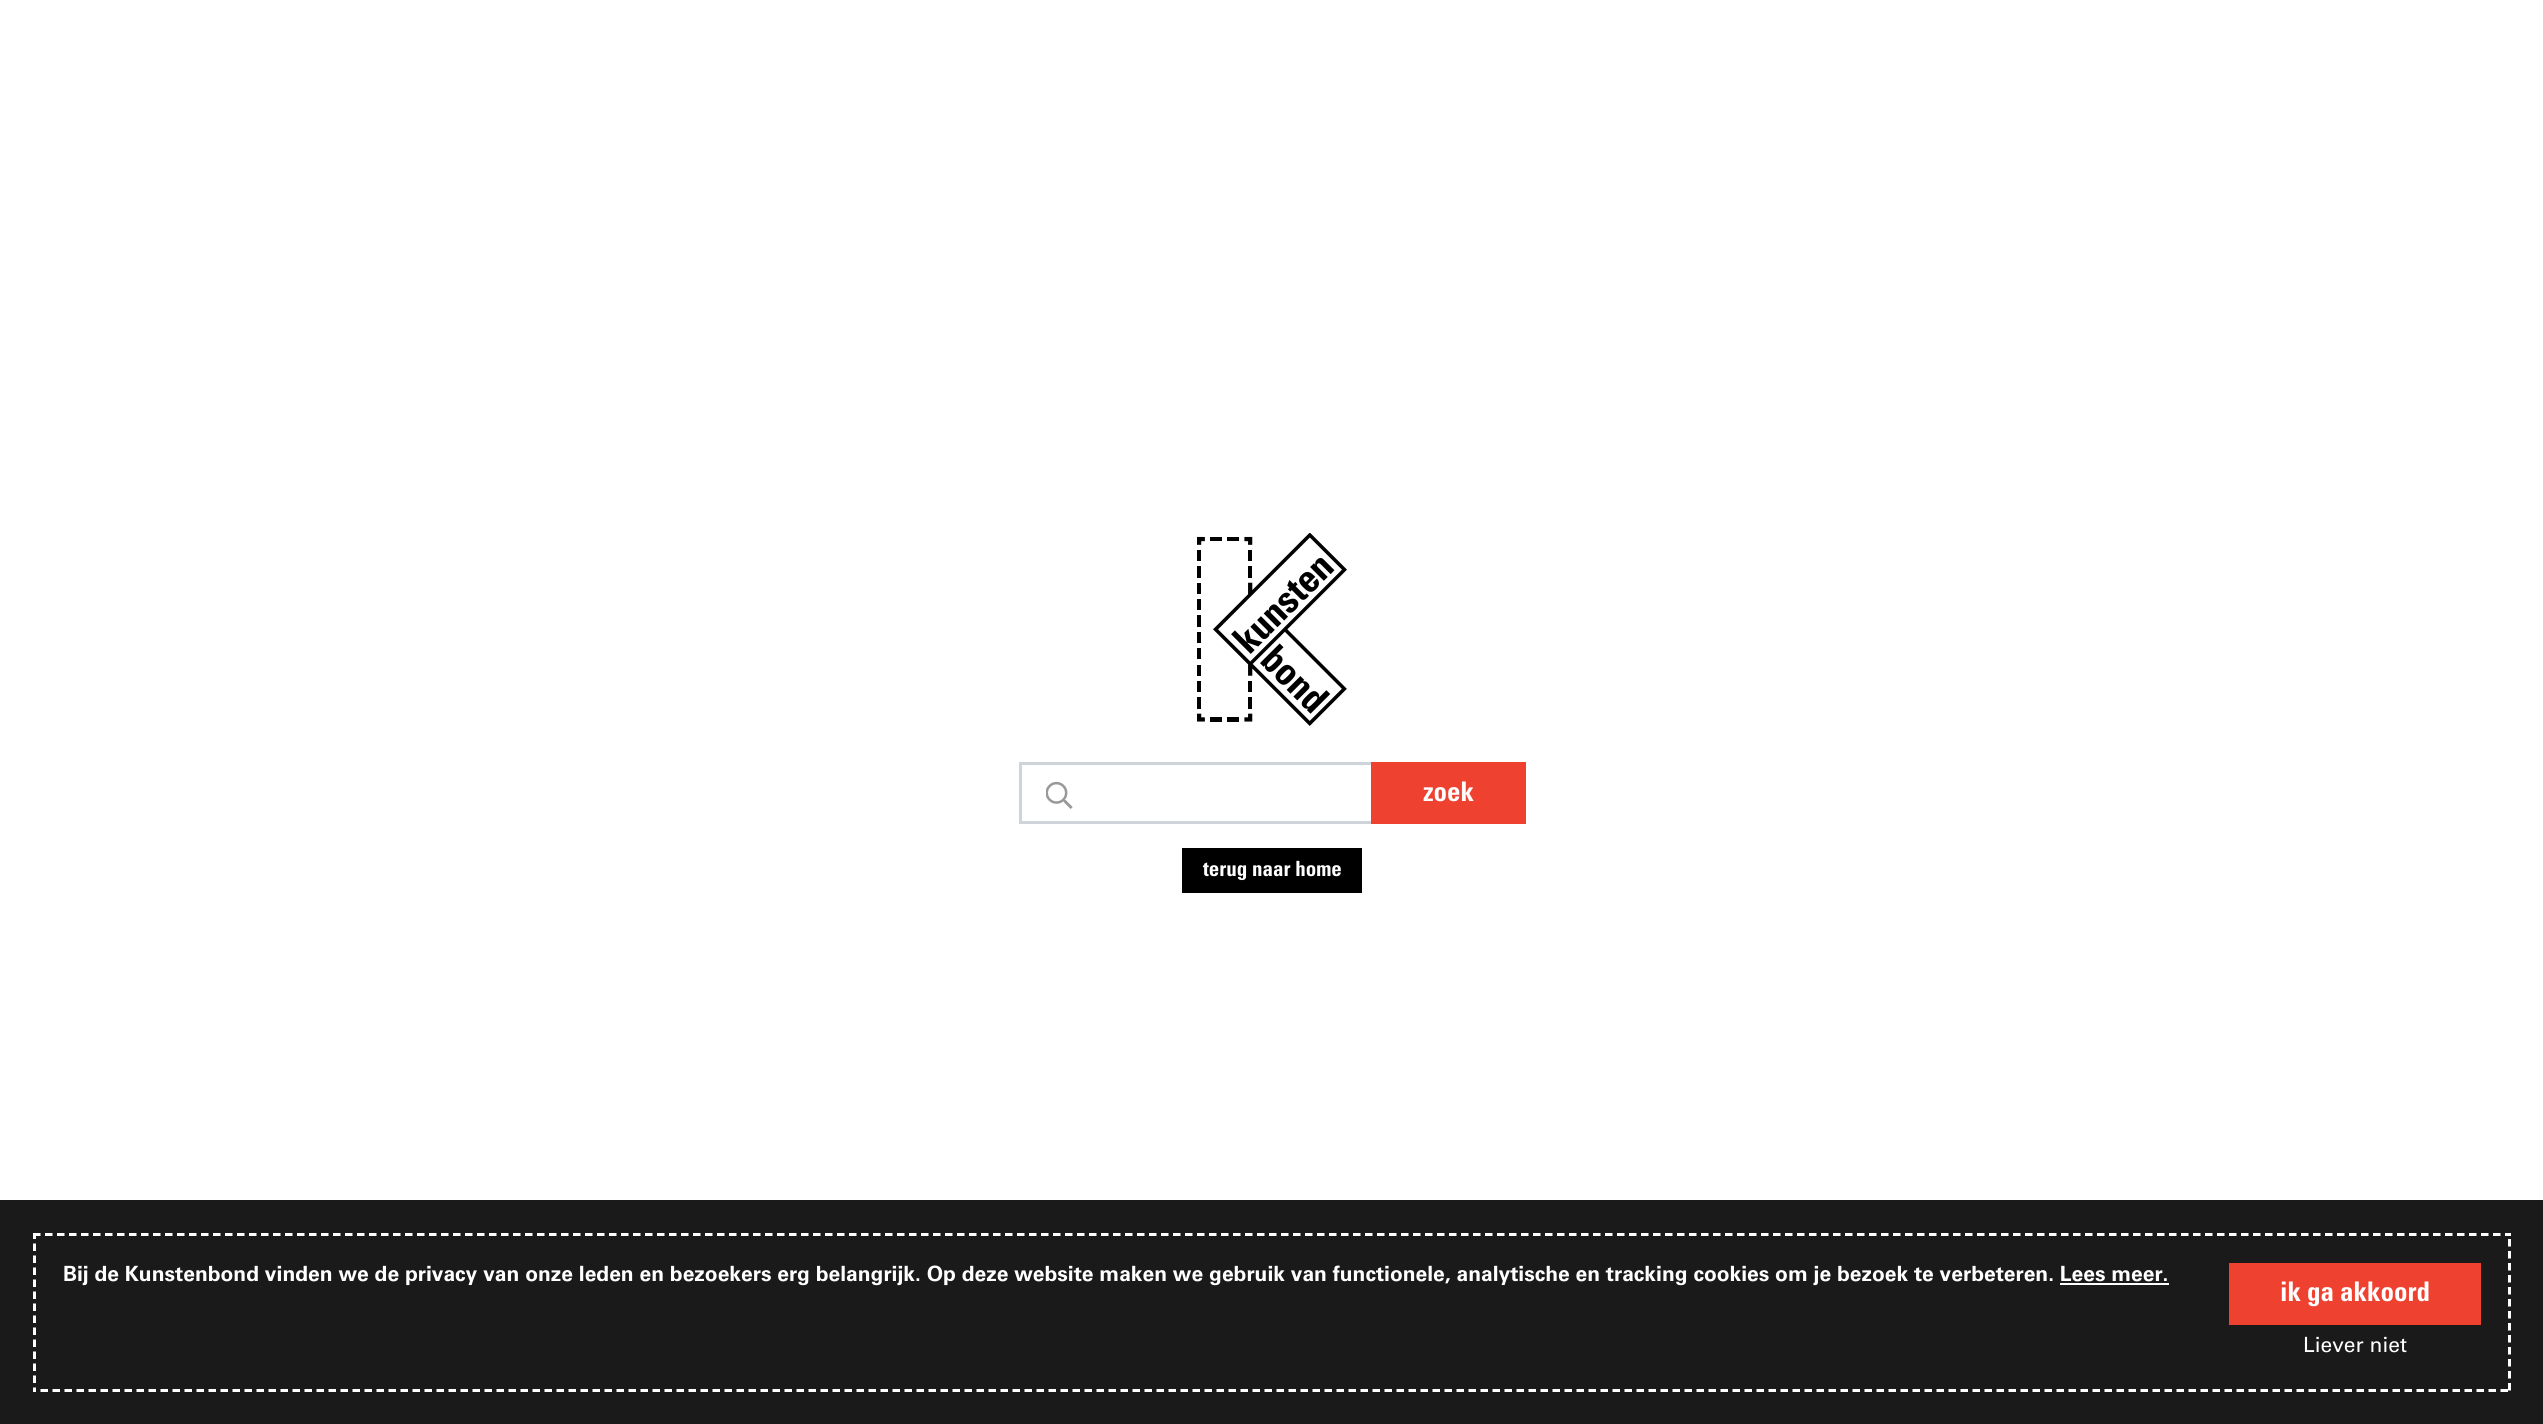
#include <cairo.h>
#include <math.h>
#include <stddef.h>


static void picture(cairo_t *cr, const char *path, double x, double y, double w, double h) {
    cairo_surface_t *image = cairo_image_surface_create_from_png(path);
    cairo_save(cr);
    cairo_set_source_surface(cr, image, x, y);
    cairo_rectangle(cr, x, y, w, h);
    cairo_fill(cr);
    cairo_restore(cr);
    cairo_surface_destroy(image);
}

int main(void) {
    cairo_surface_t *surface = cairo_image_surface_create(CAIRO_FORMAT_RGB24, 2543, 1424);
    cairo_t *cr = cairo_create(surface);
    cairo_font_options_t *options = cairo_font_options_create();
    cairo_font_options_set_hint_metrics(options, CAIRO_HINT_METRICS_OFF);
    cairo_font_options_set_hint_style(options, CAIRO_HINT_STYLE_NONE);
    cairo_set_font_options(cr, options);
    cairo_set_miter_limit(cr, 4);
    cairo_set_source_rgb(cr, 1, 1, 1);
    cairo_paint(cr);
    picture(cr, "img1.png", 1197, 533, 150, 193);
    cairo_rectangle(cr, 1020.5, 763.5, 352, 59);
    cairo_set_source_rgb(cr, 0.808, 0.831, 0.855);
    cairo_set_line_width(cr, 3);
    cairo_stroke(cr);
    picture(cr, "img2.png", 1046, 781, 27, 28);
    cairo_set_source_rgb(cr, 0.937, 0.255, 0.188);
    cairo_rectangle(cr, 1371, 762, 155, 62);
    cairo_fill(cr);
    cairo_select_font_face(cr, "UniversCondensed", CAIRO_FONT_SLANT_NORMAL, CAIRO_FONT_WEIGHT_BOLD);
    cairo_set_font_size(cr, 27);
    cairo_set_source_rgb(cr, 1, 1, 1);
    cairo_move_to(cr, 1423, 801);
    cairo_show_text(cr, "zoek");
    cairo_set_source_rgb(cr, 0, 0, 0);
    cairo_rectangle(cr, 1182, 848, 180, 45);
    cairo_fill(cr);
    cairo_set_font_size(cr, 21);
    cairo_set_source_rgb(cr, 1, 1, 1);
    cairo_move_to(cr, 1203, 876);
    cairo_show_text(cr, "terug naar home");
    cairo_set_source_rgb(cr, 0.102, 0.102, 0.102);
    cairo_rectangle(cr, 0, 1200, 2543, 224);
    cairo_fill(cr);
    picture(cr, "img3.png", 33, 1233, 2478, 159);
    cairo_select_font_face(cr, "Univers", CAIRO_FONT_SLANT_NORMAL, CAIRO_FONT_WEIGHT_BOLD);
    cairo_set_source_rgb(cr, 1, 1, 1);
    cairo_move_to(cr, 63, 1281);
    cairo_show_text(cr, "Bij de Kunstenbond vinden we de privacy van onze leden en bezoekers erg belangrijk. Op deze website maken we gebruik van functionele, analytische en tracking cookies om je bezoek te verbeteren. Lees meer.");
    cairo_rectangle(cr, 2060, 1283, 109, 2);
    cairo_fill(cr);
    cairo_set_source_rgb(cr, 0.937, 0.255, 0.188);
    cairo_rectangle(cr, 2229, 1263, 252, 62);
    cairo_fill(cr);
    cairo_select_font_face(cr, "UniversCondensed", CAIRO_FONT_SLANT_NORMAL, CAIRO_FONT_WEIGHT_BOLD);
    cairo_set_font_size(cr, 27);
    cairo_set_source_rgb(cr, 1, 1, 1);
    cairo_move_to(cr, 2280, 1301);
    cairo_show_text(cr, "ik ga akkoord");
    cairo_select_font_face(cr, "Univers", CAIRO_FONT_SLANT_NORMAL, CAIRO_FONT_WEIGHT_NORMAL);
    cairo_set_font_size(cr, 21);
    cairo_move_to(cr, 2303, 1352);
    cairo_show_text(cr, "Liever niet");
    cairo_surface_write_to_png(surface, "page.png");
    cairo_font_options_destroy(options);
    cairo_destroy(cr);
    cairo_surface_destroy(surface);
    return 0;
}
